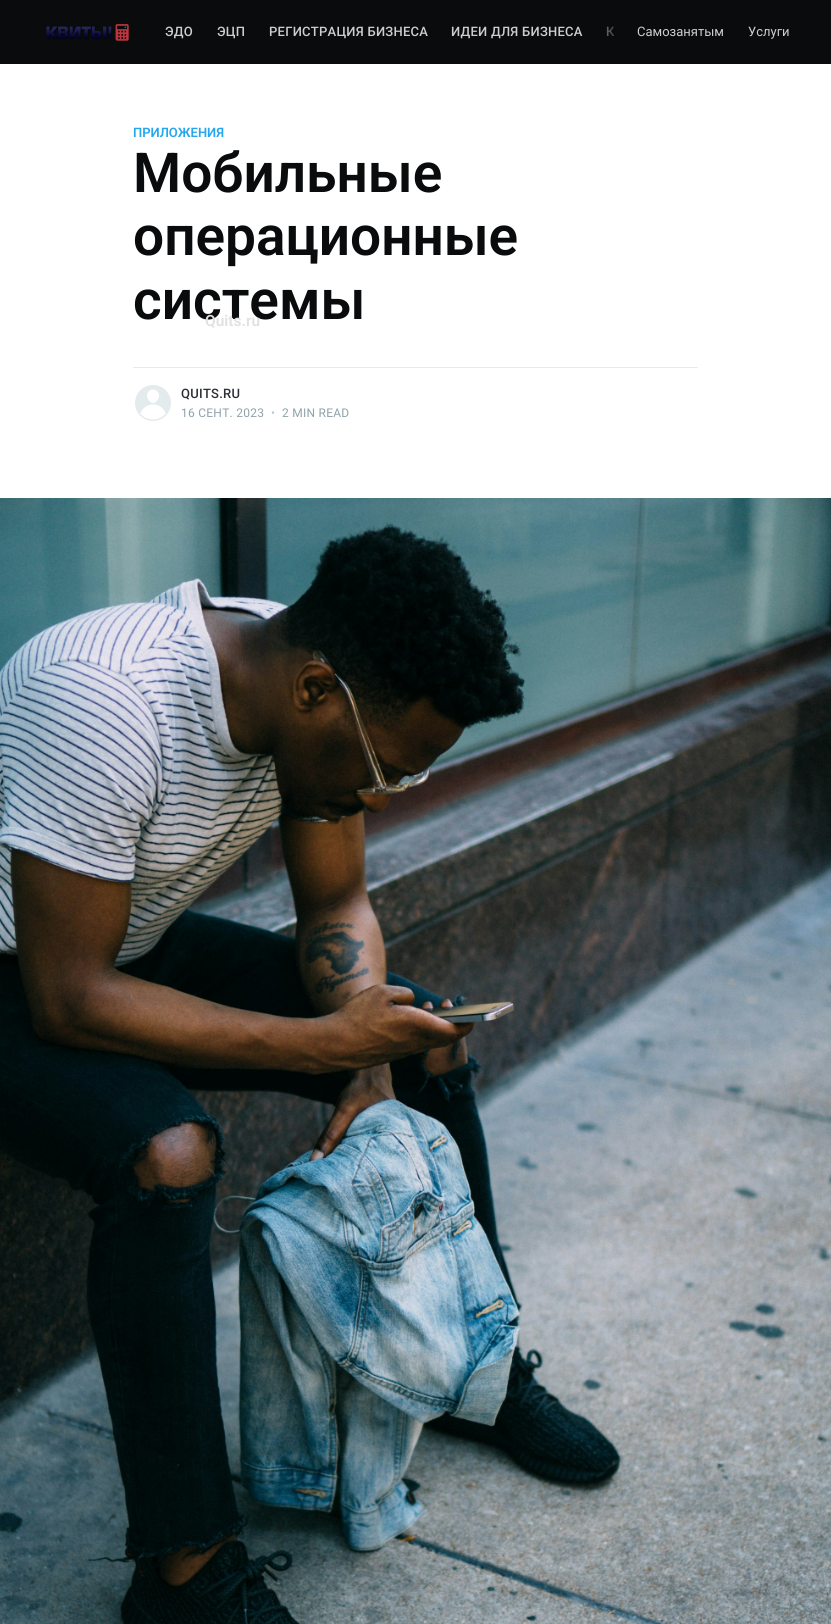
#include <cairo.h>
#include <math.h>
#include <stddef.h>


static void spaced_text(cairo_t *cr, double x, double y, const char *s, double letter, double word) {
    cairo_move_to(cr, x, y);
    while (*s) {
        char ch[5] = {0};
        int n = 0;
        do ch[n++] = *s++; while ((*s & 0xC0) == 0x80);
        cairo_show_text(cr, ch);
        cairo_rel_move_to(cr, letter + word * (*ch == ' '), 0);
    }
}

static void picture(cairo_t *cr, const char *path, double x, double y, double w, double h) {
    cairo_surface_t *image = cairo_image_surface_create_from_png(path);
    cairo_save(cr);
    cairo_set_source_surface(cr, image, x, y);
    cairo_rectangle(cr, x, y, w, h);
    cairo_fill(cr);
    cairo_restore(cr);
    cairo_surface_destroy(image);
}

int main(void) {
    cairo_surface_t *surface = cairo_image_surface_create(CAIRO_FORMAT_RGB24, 831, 1624);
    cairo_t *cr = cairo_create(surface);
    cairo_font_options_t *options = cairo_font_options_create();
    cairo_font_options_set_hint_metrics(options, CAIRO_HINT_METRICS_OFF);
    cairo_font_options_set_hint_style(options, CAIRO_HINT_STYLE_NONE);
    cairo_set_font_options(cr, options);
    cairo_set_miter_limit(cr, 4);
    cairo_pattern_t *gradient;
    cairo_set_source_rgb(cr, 1, 1, 1);
    cairo_paint(cr);
    cairo_set_source_rgb(cr, 0.039, 0.043, 0.047);
    cairo_rectangle(cr, 0, 0, 831, 64);
    cairo_fill(cr);
    picture(cr, "img1.png", 46, 23, 83, 18);
    cairo_select_font_face(cr, "Roboto Medium", CAIRO_FONT_SLANT_NORMAL, CAIRO_FONT_WEIGHT_NORMAL);
    cairo_set_font_size(cr, 13);
    cairo_set_source_rgb(cr, 0.808, 0.808, 0.808);
    spaced_text(cr, 165, 36, "ЭДО", 0.25, 0);
    spaced_text(cr, 217, 36, "ЭЦП", 0.25, 0);
    spaced_text(cr, 269, 36, "РЕГИСТРАЦИЯ БИЗНЕСА", 0.25, 0);
    spaced_text(cr, 451, 36, "ИДЕИ ДЛЯ БИЗНЕСА", 0.25, 0);
    spaced_text(cr, 606, 36, "К", 0.25, 0);
    gradient = cairo_pattern_create_linear(585, 68, 625, 68);
    cairo_pattern_add_color_stop_rgba(gradient, 0, 0.039, 0.043, 0.047, 0);
    cairo_pattern_add_color_stop_rgba(gradient, 1, 0.039, 0.043, 0.047, 1);
    cairo_set_source(cr, gradient);
    cairo_pattern_destroy(gradient);
    cairo_rectangle(cr, 607, 26, 8, 10);
    cairo_fill(cr);
    cairo_select_font_face(cr, "Roboto", CAIRO_FONT_SLANT_NORMAL, CAIRO_FONT_WEIGHT_NORMAL);
    cairo_set_source_rgb(cr, 0.808, 0.808, 0.808);
    cairo_move_to(cr, 637, 36);
    cairo_show_text(cr, "Самозанятым");
    cairo_move_to(cr, 748, 36);
    cairo_show_text(cr, "Услуги");
    cairo_select_font_face(cr, "Roboto SemiBold", CAIRO_FONT_SLANT_NORMAL, CAIRO_FONT_WEIGHT_NORMAL);
    cairo_set_source_rgb(cr, 0.149, 0.651, 0.929);
    cairo_move_to(cr, 133, 137);
    cairo_show_text(cr, "ПРИЛОЖЕНИЯ");
    cairo_set_font_size(cr, 55);
    cairo_set_source_rgb(cr, 0.039, 0.043, 0.047);
    cairo_move_to(cr, 133, 192);
    cairo_show_text(cr, "Мобильные");
    cairo_move_to(cr, 133, 255);
    cairo_show_text(cr, "операционные");
    cairo_move_to(cr, 133, 319);
    cairo_show_text(cr, "системы");
    cairo_set_source_rgb(cr, 0.894, 0.918, 0.929);
    cairo_rectangle(cr, 133, 367, 565, 1);
    cairo_fill(cr);
    cairo_set_font_size(cr, 15.5);
    cairo_set_source_rgb(cr, 0.882, 0.882, 0.882);
    cairo_move_to(cr, 205, 326);
    cairo_show_text(cr, "Quits.ru");
    cairo_set_source_rgb(cr, 0.894, 0.918, 0.929);
    cairo_new_path(cr);
    cairo_arc(cr, 153, 403, 19, 0, 2 * M_PI);
    cairo_fill_preserve(cr);
    cairo_set_source_rgb(cr, 1, 1, 1);
    cairo_stroke(cr);
    picture(cr, "img2.png", 140, 389, 26, 31);
    cairo_select_font_face(cr, "Roboto Medium", CAIRO_FONT_SLANT_NORMAL, CAIRO_FONT_WEIGHT_NORMAL);
    cairo_set_font_size(cr, 13);
    cairo_set_source_rgb(cr, 0.173, 0.188, 0.212);
    spaced_text(cr, 181, 398, "QUITS.RU", 0.25, 0);
    cairo_select_font_face(cr, "Roboto", CAIRO_FONT_SLANT_NORMAL, CAIRO_FONT_WEIGHT_NORMAL);
    cairo_set_font_size(cr, 12);
    cairo_set_source_rgb(cr, 0.565, 0.635, 0.667);
    spaced_text(cr, 181, 417, "16 СЕНТ. 2023", 0.25, 0);
    cairo_set_source_rgb(cr, 0.737, 0.78, 0.8);
    spaced_text(cr, 271, 417, "•", 0.25, 0);
    cairo_set_source_rgb(cr, 0.565, 0.635, 0.667);
    spaced_text(cr, 282, 417, "2 MIN READ", 0.25, 0);
    picture(cr, "img3.png", 0, 498, 831, 1126);
    cairo_surface_write_to_png(surface, "page.png");
    cairo_font_options_destroy(options);
    cairo_destroy(cr);
    cairo_surface_destroy(surface);
    return 0;
}
